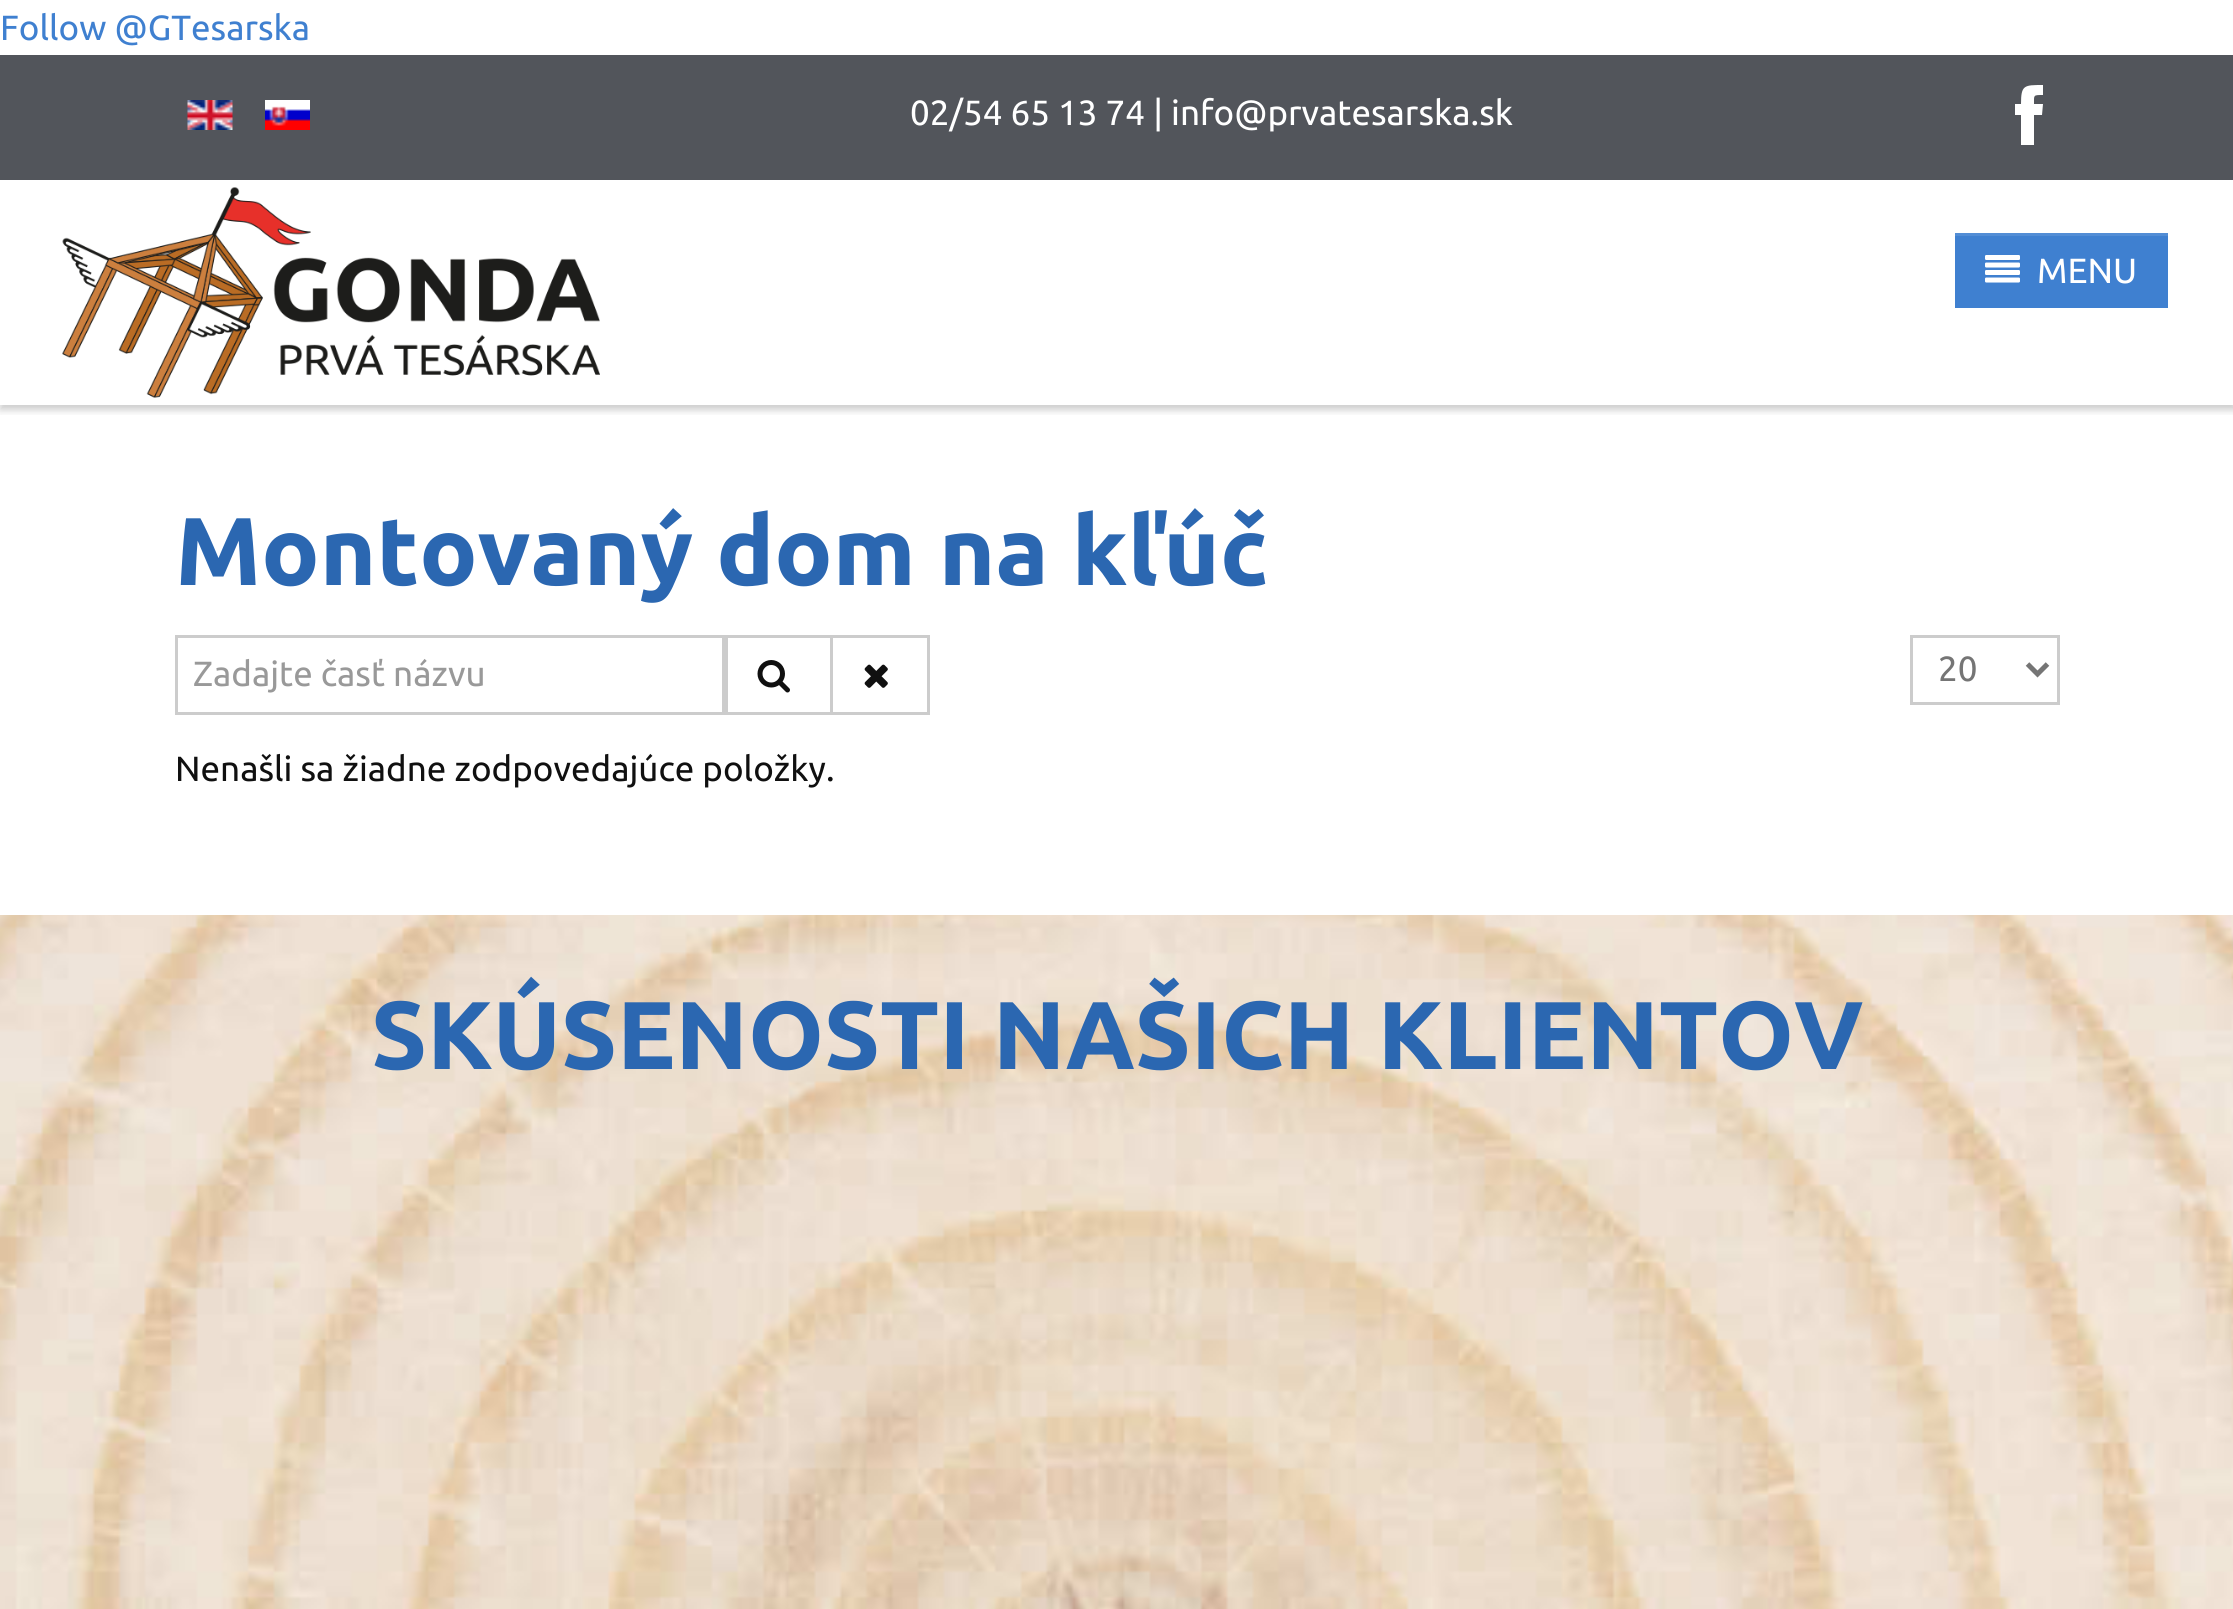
#include <cairo.h>
#include <math.h>
#include <stddef.h>


static void round_rect(cairo_t *cr, double x, double y, double w, double h, double r) {
    cairo_new_sub_path(cr);
    cairo_arc(cr, x + w - r, y + h - r, r, 0, M_PI / 2);
    cairo_arc(cr, x + r, y + h - r, r, M_PI / 2, M_PI);
    cairo_arc(cr, x + r, y + r, r, M_PI, 1.5 * M_PI);
    cairo_arc(cr, x + w - r, y + r, r, 1.5 * M_PI, 2 * M_PI);
    cairo_close_path(cr);
}

static void shadow(cairo_t *cr, double x, double y, double w, double h, double r, double blur, double alpha) {
    cairo_push_group_with_content(cr, CAIRO_CONTENT_ALPHA);
    cairo_set_operator(cr, CAIRO_OPERATOR_SOURCE);
    for (int i = 15; i >= -15 && fmin(w, h) + blur * i / 3 > 0; i -= 2) {
        double e = blur * i / 6;
        cairo_set_source_rgba(cr, 0, 0, 0, alpha * erfc((i - 1) / 8.5) / 2);
        round_rect(cr, x - e, y - e, w + 2 * e, h + 2 * e, fmax(0, fmin(r + e + blur * .6, fmin(w, h) / 2 + e)));
        cairo_fill(cr);
    }
    cairo_pattern_t *soft = cairo_pop_group(cr);
    cairo_mask(cr, soft);
    cairo_pattern_destroy(soft);
}

static void picture(cairo_t *cr, const char *path, double x, double y, double w, double h) {
    cairo_surface_t *image = cairo_image_surface_create_from_png(path);
    cairo_save(cr);
    cairo_set_source_surface(cr, image, x, y);
    cairo_rectangle(cr, x, y, w, h);
    cairo_fill(cr);
    cairo_restore(cr);
    cairo_surface_destroy(image);
}

int main(void) {
    cairo_surface_t *surface = cairo_image_surface_create(CAIRO_FORMAT_RGB24, 2233, 1609);
    cairo_t *cr = cairo_create(surface);
    cairo_font_options_t *options = cairo_font_options_create();
    cairo_font_options_set_hint_metrics(options, CAIRO_HINT_METRICS_OFF);
    cairo_font_options_set_hint_style(options, CAIRO_HINT_STYLE_NONE);
    cairo_set_font_options(cr, options);
    cairo_set_miter_limit(cr, 4);
    cairo_set_source_rgb(cr, 1, 1, 1);
    cairo_paint(cr);
    cairo_select_font_face(cr, "Ubuntu", CAIRO_FONT_SLANT_NORMAL, CAIRO_FONT_WEIGHT_NORMAL);
    cairo_set_font_size(cr, 35);
    cairo_set_source_rgb(cr, 0.247, 0.502, 0.816);
    cairo_move_to(cr, 0, 40);
    cairo_show_text(cr, "Follow @GTesarska");
    cairo_set_source_rgb(cr, 0.322, 0.333, 0.357);
    cairo_rectangle(cr, 0, 55, 2233, 125);
    cairo_fill(cr);
    picture(cr, "img1.png", 187, 100, 46, 30);
    picture(cr, "img2.png", 265, 100, 45, 30);
    cairo_set_source_rgb(cr, 1, 1, 1);
    cairo_move_to(cr, 910, 125);
    cairo_show_text(cr, "02/54 65 13 74 | info@prvatesarska.sk");
    cairo_new_path(cr);
    cairo_move_to(cr, 2034, 104);
    cairo_line_to(cr, 2043, 104);
    cairo_line_to(cr, 2042, 115);
    cairo_line_to(cr, 2034, 115);
    cairo_line_to(cr, 2034, 145);
    cairo_line_to(cr, 2021, 145);
    cairo_line_to(cr, 2021, 115);
    cairo_line_to(cr, 2015, 115);
    cairo_line_to(cr, 2015, 104);
    cairo_line_to(cr, 2021, 104);
    cairo_curve_to(cr, 2021, 85, 2024, 85, 2043, 85);
    cairo_line_to(cr, 2043, 95);
    cairo_curve_to(cr, 2033, 95, 2034, 95, 2034, 104);
    cairo_close_path(cr);
    cairo_fill(cr);
    cairo_save(cr);
    cairo_rectangle(cr, 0, 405, 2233, 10);
    cairo_clip(cr);
    cairo_set_source_rgb(cr, 0, 0, 0);
    shadow(cr, 0, 185, 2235, 225, 0, 4, 0.2);
    cairo_restore(cr);
    picture(cr, "img3.png", 62, 187, 538, 211);
    cairo_set_source_rgb(cr, 0.247, 0.502, 0.816);
    cairo_rectangle(cr, 1955, 236, 213, 72);
    cairo_fill(cr);
    cairo_set_source_rgb(cr, 0.322, 0.553, 0.835);
    cairo_rectangle(cr, 1955, 233, 213, 3);
    cairo_fill(cr);
    picture(cr, "img4.png", 1985, 255, 35, 28);
    cairo_set_source_rgb(cr, 1, 1, 1);
    cairo_move_to(cr, 2037, 283);
    cairo_show_text(cr, "MENU");
    cairo_select_font_face(cr, "Ubuntu", CAIRO_FONT_SLANT_NORMAL, CAIRO_FONT_WEIGHT_BOLD);
    cairo_set_font_size(cr, 96.25);
    cairo_set_source_rgb(cr, 0.169, 0.404, 0.694);
    cairo_move_to(cr, 175, 585);
    cairo_show_text(cr, "Montovaný dom na kľúč");
    cairo_rectangle(cr, 176.5, 636.5, 547, 77);
    cairo_set_source_rgb(cr, 0.8, 0.8, 0.8);
    cairo_set_line_width(cr, 3);
    cairo_stroke(cr);
    cairo_select_font_face(cr, "Ubuntu", CAIRO_FONT_SLANT_NORMAL, CAIRO_FONT_WEIGHT_NORMAL);
    cairo_set_font_size(cr, 35);
    cairo_set_source_rgb(cr, 0.6, 0.6, 0.6);
    cairo_move_to(cr, 193, 686);
    cairo_show_text(cr, "Zadajte časť názvu");
    cairo_rectangle(cr, 726.5, 636.5, 105, 77);
    cairo_set_source_rgb(cr, 0.8, 0.8, 0.8);
    cairo_stroke(cr);
    picture(cr, "img5.png", 757, 660, 33, 33);
    cairo_rectangle(cr, 831.5, 636.5, 97, 77);
    cairo_stroke(cr);
    picture(cr, "img6.png", 864, 664, 24, 24);
    cairo_rectangle(cr, 1911.5, 636.5, 147, 67);
    cairo_stroke(cr);
    cairo_new_path(cr);
    cairo_move_to(cr, 2027.5, 664);
    cairo_line_to(cr, 2037.5, 674);
    cairo_line_to(cr, 2047.5, 664);
    cairo_set_source_rgb(cr, 0.459, 0.459, 0.459);
    cairo_set_line_width(cr, 5);
    cairo_stroke(cr);
    cairo_move_to(cr, 1938, 681);
    cairo_show_text(cr, "20");
    cairo_set_source_rgb(cr, 0.063, 0.063, 0.063);
    cairo_move_to(cr, 175, 781);
    cairo_show_text(cr, "Nenašli sa žiadne zodpovedajúce položky.");
    picture(cr, "img7.png", 0, 915, 2233, 694);
    cairo_select_font_face(cr, "Ubuntu", CAIRO_FONT_SLANT_NORMAL, CAIRO_FONT_WEIGHT_BOLD);
    cairo_set_font_size(cr, 96.25);
    cairo_set_source_rgb(cr, 0.169, 0.404, 0.694);
    cairo_move_to(cr, 371, 1069);
    cairo_show_text(cr, "SKÚSENOSTI NAŠICH KLIENTOV");
    cairo_surface_write_to_png(surface, "page.png");
    cairo_font_options_destroy(options);
    cairo_destroy(cr);
    cairo_surface_destroy(surface);
    return 0;
}
